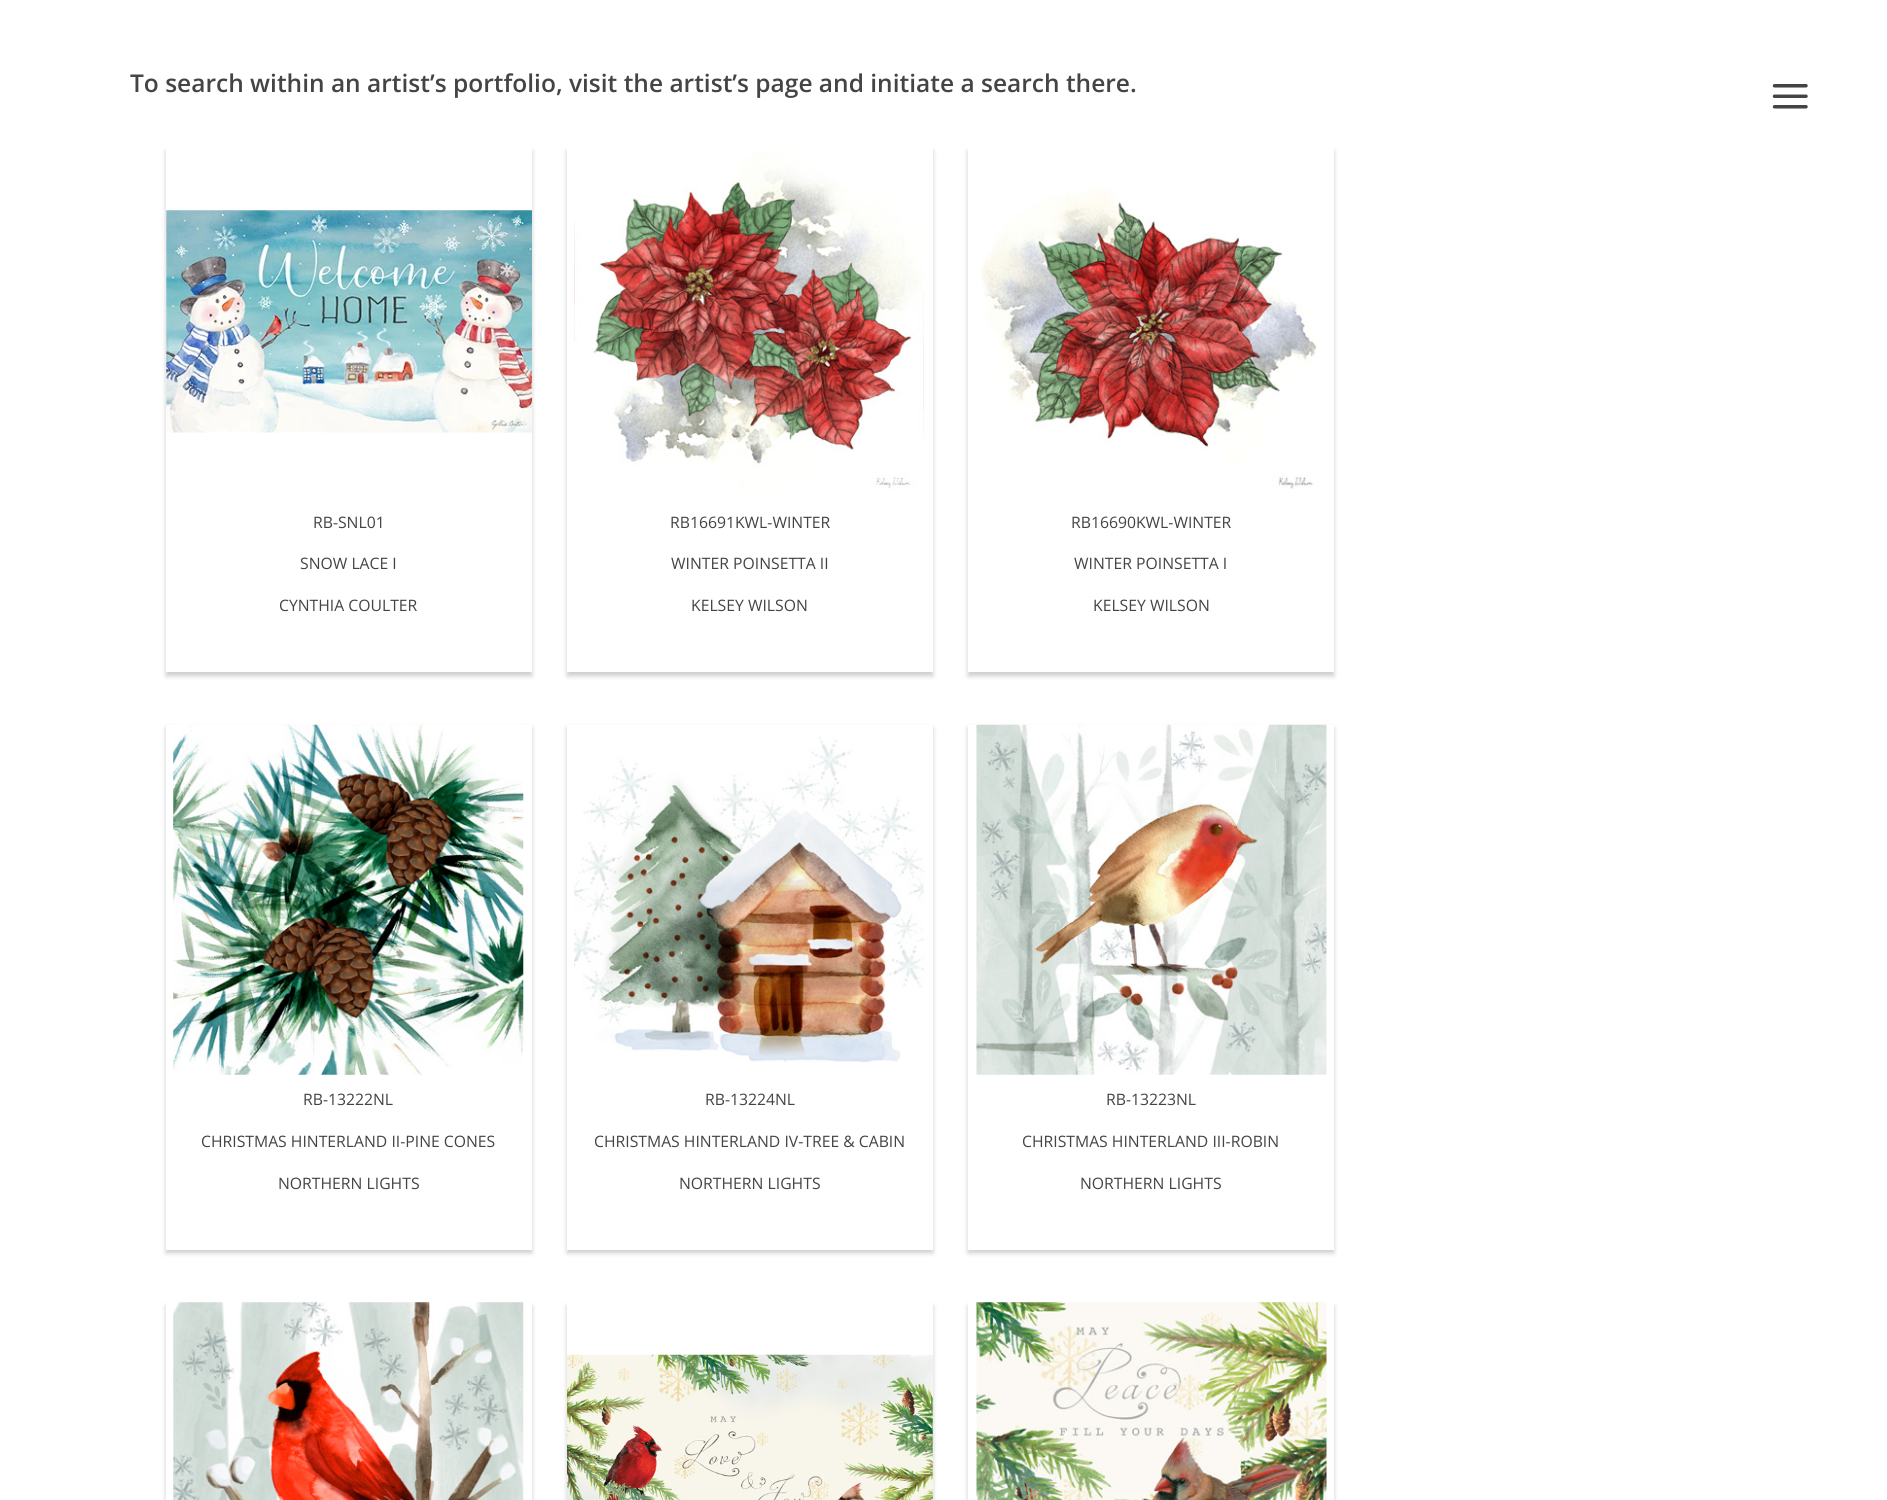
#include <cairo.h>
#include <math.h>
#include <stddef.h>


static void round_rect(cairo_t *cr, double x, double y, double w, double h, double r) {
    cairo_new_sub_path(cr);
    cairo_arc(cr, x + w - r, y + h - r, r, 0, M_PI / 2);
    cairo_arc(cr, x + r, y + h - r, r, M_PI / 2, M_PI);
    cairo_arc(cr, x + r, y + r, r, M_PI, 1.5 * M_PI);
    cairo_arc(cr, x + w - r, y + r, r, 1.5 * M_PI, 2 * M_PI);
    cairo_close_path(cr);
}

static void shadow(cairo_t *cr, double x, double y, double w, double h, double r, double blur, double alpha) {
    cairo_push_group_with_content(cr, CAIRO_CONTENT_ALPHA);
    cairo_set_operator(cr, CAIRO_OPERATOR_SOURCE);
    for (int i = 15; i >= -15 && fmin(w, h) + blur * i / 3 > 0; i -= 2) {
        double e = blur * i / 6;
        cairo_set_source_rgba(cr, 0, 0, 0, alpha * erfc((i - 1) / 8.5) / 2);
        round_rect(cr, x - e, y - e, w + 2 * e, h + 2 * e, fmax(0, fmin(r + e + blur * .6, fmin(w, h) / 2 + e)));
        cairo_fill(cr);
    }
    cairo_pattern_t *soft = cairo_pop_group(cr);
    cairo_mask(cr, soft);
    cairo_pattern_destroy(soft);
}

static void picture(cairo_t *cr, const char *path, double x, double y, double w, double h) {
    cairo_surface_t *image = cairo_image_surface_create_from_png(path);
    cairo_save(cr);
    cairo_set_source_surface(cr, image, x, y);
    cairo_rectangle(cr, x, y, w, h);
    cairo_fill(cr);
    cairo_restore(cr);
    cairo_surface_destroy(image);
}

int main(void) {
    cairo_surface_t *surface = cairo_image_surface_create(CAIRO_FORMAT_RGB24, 1887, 1500);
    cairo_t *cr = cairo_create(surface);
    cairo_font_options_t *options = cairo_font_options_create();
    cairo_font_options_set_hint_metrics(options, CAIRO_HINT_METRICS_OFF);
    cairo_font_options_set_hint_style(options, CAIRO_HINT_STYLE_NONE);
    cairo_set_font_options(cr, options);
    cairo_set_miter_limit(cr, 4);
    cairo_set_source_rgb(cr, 1, 1, 1);
    cairo_paint(cr);
    cairo_select_font_face(cr, "Open Sans SemiBold", CAIRO_FONT_SLANT_NORMAL, CAIRO_FONT_WEIGHT_NORMAL);
    cairo_set_font_size(cr, 24.5);
    cairo_set_source_rgb(cr, 0.267, 0.267, 0.267);
    cairo_move_to(cr, 130, 92);
    cairo_show_text(cr, "To search within an artist’s portfolio, visit the artist’s page and initiate a search there.");
    cairo_set_source_rgb(cr, 0, 0, 0);
    shadow(cr, 166, 151, 366, 525, 0, 2.5, 0.2);
    cairo_set_source_rgb(cr, 1, 1, 1);
    cairo_rectangle(cr, 166, 147, 366, 525);
    cairo_fill(cr);
    picture(cr, "img1.png", 166, 210, 366, 223);
    cairo_select_font_face(cr, "Open Sans", CAIRO_FONT_SLANT_NORMAL, CAIRO_FONT_WEIGHT_NORMAL);
    cairo_set_font_size(cr, 15.75);
    cairo_set_source_rgb(cr, 0.267, 0.267, 0.267);
    cairo_move_to(cr, 313, 528);
    cairo_show_text(cr, "RB-SNL01");
    cairo_move_to(cr, 300, 569);
    cairo_show_text(cr, "SNOW LACE I");
    cairo_move_to(cr, 279, 611);
    cairo_show_text(cr, "CYNTHIA COULTER");
    cairo_set_source_rgb(cr, 0, 0, 0);
    shadow(cr, 567, 151, 366, 525, 0, 2.5, 0.2);
    cairo_set_source_rgb(cr, 1, 1, 1);
    cairo_rectangle(cr, 567, 147, 366, 525);
    cairo_fill(cr);
    picture(cr, "img2.png", 574, 152, 350, 337);
    cairo_set_source_rgb(cr, 0.267, 0.267, 0.267);
    cairo_move_to(cr, 670, 528);
    cairo_show_text(cr, "RB16691KWL-WINTER");
    cairo_move_to(cr, 671, 569);
    cairo_show_text(cr, "WINTER POINSETTA II");
    cairo_move_to(cr, 691, 611);
    cairo_show_text(cr, "KELSEY WILSON");
    cairo_set_source_rgb(cr, 0, 0, 0);
    shadow(cr, 968, 151, 366, 525, 0, 2.5, 0.2);
    cairo_set_source_rgb(cr, 1, 1, 1);
    cairo_rectangle(cr, 968, 147, 366, 525);
    cairo_fill(cr);
    picture(cr, "img3.png", 980, 188, 337, 301);
    cairo_set_source_rgb(cr, 0.267, 0.267, 0.267);
    cairo_move_to(cr, 1071, 528);
    cairo_show_text(cr, "RB16690KWL-WINTER");
    cairo_move_to(cr, 1074, 569);
    cairo_show_text(cr, "WINTER POINSETTA I");
    cairo_move_to(cr, 1093, 611);
    cairo_show_text(cr, "KELSEY WILSON");
    cairo_set_source_rgb(cr, 0, 0, 0);
    shadow(cr, 166, 728, 366, 525, 0, 2.5, 0.2);
    cairo_set_source_rgb(cr, 1, 1, 1);
    cairo_rectangle(cr, 166, 725, 366, 525);
    cairo_fill(cr);
    picture(cr, "img4.png", 173, 724, 351, 351);
    cairo_set_source_rgb(cr, 0.267, 0.267, 0.267);
    cairo_move_to(cr, 303, 1105);
    cairo_show_text(cr, "RB-13222NL");
    cairo_move_to(cr, 201, 1147);
    cairo_show_text(cr, "CHRISTMAS HINTERLAND II-PINE CONES");
    cairo_move_to(cr, 278, 1189);
    cairo_show_text(cr, "NORTHERN LIGHTS");
    cairo_set_source_rgb(cr, 0, 0, 0);
    shadow(cr, 567, 728, 366, 525, 0, 2.5, 0.2);
    cairo_set_source_rgb(cr, 1, 1, 1);
    cairo_rectangle(cr, 567, 725, 366, 525);
    cairo_fill(cr);
    picture(cr, "img5.png", 574, 736, 350, 327);
    cairo_set_source_rgb(cr, 0.267, 0.267, 0.267);
    cairo_move_to(cr, 705, 1105);
    cairo_show_text(cr, "RB-13224NL");
    cairo_move_to(cr, 594, 1147);
    cairo_show_text(cr, "CHRISTMAS HINTERLAND IV-TREE & CABIN");
    cairo_move_to(cr, 679, 1189);
    cairo_show_text(cr, "NORTHERN LIGHTS");
    cairo_set_source_rgb(cr, 0, 0, 0);
    shadow(cr, 968, 728, 366, 525, 0, 2.5, 0.2);
    cairo_set_source_rgb(cr, 1, 1, 1);
    cairo_rectangle(cr, 968, 725, 366, 525);
    cairo_fill(cr);
    picture(cr, "img6.png", 976, 724, 351, 351);
    cairo_set_source_rgb(cr, 0.267, 0.267, 0.267);
    cairo_move_to(cr, 1106, 1105);
    cairo_show_text(cr, "RB-13223NL");
    cairo_move_to(cr, 1022, 1147);
    cairo_show_text(cr, "CHRISTMAS HINTERLAND III-ROBIN");
    cairo_move_to(cr, 1080, 1189);
    cairo_show_text(cr, "NORTHERN LIGHTS");
    cairo_set_source_rgb(cr, 0, 0, 0);
    shadow(cr, 166, 1306, 366, 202, 0, 2.5, 0.2);
    cairo_set_source_rgb(cr, 1, 1, 1);
    cairo_rectangle(cr, 166, 1302, 366, 198);
    cairo_fill(cr);
    picture(cr, "img7.png", 173, 1302, 351, 198);
    cairo_set_source_rgb(cr, 0, 0, 0);
    shadow(cr, 567, 1306, 366, 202, 0, 2.5, 0.2);
    cairo_set_source_rgb(cr, 1, 1, 1);
    cairo_rectangle(cr, 567, 1302, 366, 198);
    cairo_fill(cr);
    picture(cr, "img8.png", 567, 1354, 366, 146);
    cairo_set_source_rgb(cr, 0, 0, 0);
    shadow(cr, 968, 1306, 366, 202, 0, 2.5, 0.2);
    cairo_set_source_rgb(cr, 1, 1, 1);
    cairo_rectangle(cr, 968, 1302, 366, 198);
    cairo_fill(cr);
    picture(cr, "img9.png", 976, 1302, 351, 198);
    picture(cr, "img10.png", 1772, 84, 36, 25);
    cairo_surface_write_to_png(surface, "page.png");
    cairo_font_options_destroy(options);
    cairo_destroy(cr);
    cairo_surface_destroy(surface);
    return 0;
}
